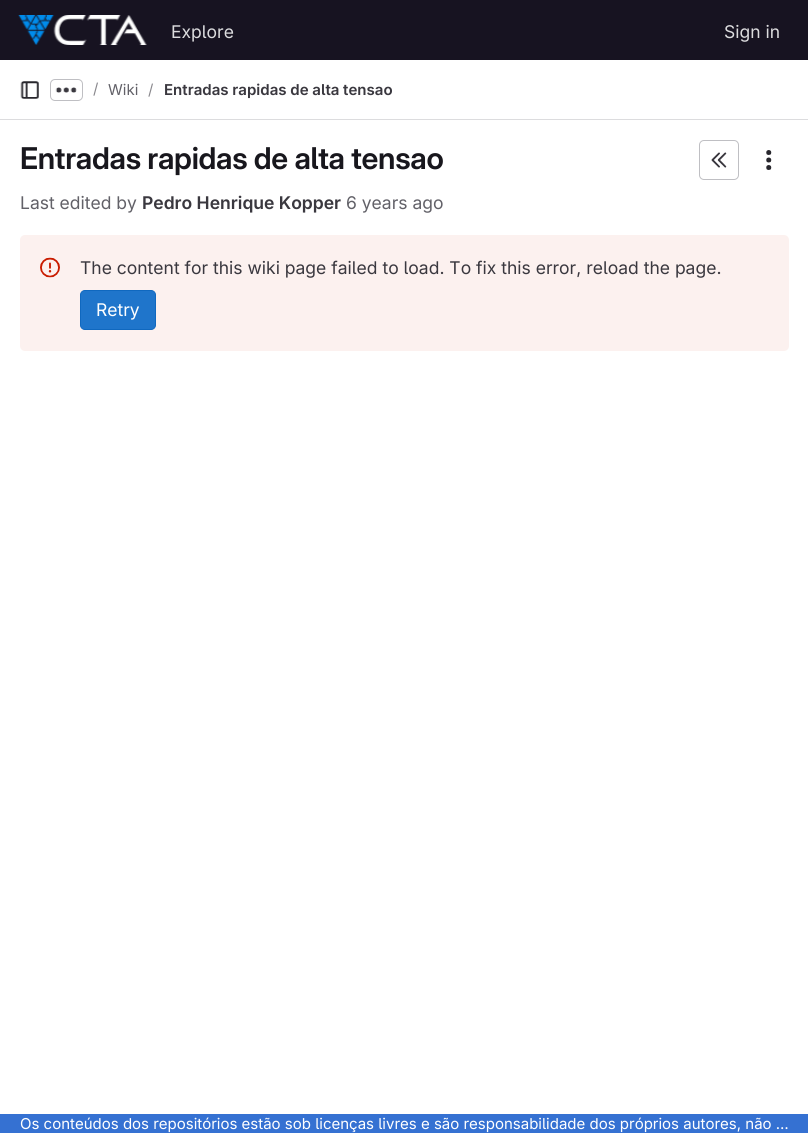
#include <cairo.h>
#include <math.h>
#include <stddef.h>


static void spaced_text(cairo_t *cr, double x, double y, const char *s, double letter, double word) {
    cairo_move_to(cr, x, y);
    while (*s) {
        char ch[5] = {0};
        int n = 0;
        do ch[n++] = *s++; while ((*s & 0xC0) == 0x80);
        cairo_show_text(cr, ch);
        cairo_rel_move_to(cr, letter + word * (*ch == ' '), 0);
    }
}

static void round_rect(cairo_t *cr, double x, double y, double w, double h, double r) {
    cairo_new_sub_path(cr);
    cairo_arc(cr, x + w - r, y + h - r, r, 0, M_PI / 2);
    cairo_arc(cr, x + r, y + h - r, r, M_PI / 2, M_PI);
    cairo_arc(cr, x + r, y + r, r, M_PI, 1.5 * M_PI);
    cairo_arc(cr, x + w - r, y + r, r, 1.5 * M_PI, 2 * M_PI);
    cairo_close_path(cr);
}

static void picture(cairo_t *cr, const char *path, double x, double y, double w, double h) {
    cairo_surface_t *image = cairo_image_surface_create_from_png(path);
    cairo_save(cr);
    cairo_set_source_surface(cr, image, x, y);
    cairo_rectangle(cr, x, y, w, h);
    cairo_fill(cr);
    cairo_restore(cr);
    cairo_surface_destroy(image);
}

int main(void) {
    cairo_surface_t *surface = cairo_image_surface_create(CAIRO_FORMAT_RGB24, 808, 1133);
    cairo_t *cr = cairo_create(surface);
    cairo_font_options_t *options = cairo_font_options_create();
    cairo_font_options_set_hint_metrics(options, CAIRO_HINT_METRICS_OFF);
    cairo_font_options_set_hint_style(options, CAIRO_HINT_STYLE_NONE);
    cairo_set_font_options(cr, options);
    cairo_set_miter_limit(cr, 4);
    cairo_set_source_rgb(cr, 1, 1, 1);
    cairo_paint(cr);
    cairo_set_source_rgb(cr, 0.09, 0.075, 0.129);
    cairo_rectangle(cr, 0, 0, 808, 60);
    cairo_fill(cr);
    picture(cr, "img1.png", 18, 15, 129, 30);
    cairo_select_font_face(cr, "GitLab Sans", CAIRO_FONT_SLANT_NORMAL, CAIRO_FONT_WEIGHT_NORMAL);
    cairo_set_font_size(cr, 17.5);
    cairo_set_source_rgb(cr, 0.863, 0.863, 0.871);
    cairo_move_to(cr, 171, 38);
    cairo_show_text(cr, "Explore");
    cairo_move_to(cr, 724, 38);
    cairo_show_text(cr, "Sign in");
    cairo_rectangle(cr, 0, 119, 808, 1);
    cairo_fill(cr);
    picture(cr, "img2.png", 20, 81, 19, 18);
    round_rect(cr, 50.5, 79.5, 32, 21, 4.5);
    cairo_set_source_rgb(cr, 0.749, 0.749, 0.765);
    cairo_set_line_width(cr, 1);
    cairo_stroke(cr);
    picture(cr, "img3.png", 55, 87, 22, 6);
    cairo_set_font_size(cr, 15);
    cairo_set_source_rgb(cr, 0.537, 0.533, 0.553);
    cairo_move_to(cr, 93, 94);
    cairo_show_text(cr, "/");
    cairo_set_source_rgb(cr, 0.384, 0.38, 0.408);
    cairo_move_to(cr, 108, 95);
    cairo_show_text(cr, "Wiki");
    cairo_set_source_rgb(cr, 0.537, 0.533, 0.553);
    cairo_move_to(cr, 148, 95);
    cairo_show_text(cr, "/");
    cairo_select_font_face(cr, "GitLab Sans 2 SemiBold", CAIRO_FONT_SLANT_NORMAL, CAIRO_FONT_WEIGHT_NORMAL);
    cairo_set_source_rgb(cr, 0.227, 0.22, 0.247);
    cairo_move_to(cr, 164, 95);
    cairo_show_text(cr, "Entradas rapidas de alta tensao");
    cairo_select_font_face(cr, "GitLab Sans SemiBold", CAIRO_FONT_SLANT_NORMAL, CAIRO_FONT_WEIGHT_NORMAL);
    cairo_set_font_size(cr, 30);
    cairo_set_source_rgb(cr, 0.094, 0.09, 0.114);
    spaced_text(cr, 20, 169, "Entradas rapidas de alta tensao", -0.3, 0);
    round_rect(cr, 699.5, 140.5, 39, 39, 4.5);
    cairo_set_source_rgb(cr, 0.749, 0.749, 0.765);
    cairo_stroke(cr);
    picture(cr, "img4.png", 711, 152, 16, 16);
    picture(cr, "img5.png", 766, 150, 6, 20);
    cairo_select_font_face(cr, "GitLab Sans", CAIRO_FONT_SLANT_NORMAL, CAIRO_FONT_WEIGHT_NORMAL);
    cairo_set_font_size(cr, 17.5);
    cairo_set_source_rgb(cr, 0.384, 0.38, 0.408);
    cairo_move_to(cr, 20, 209);
    cairo_show_text(cr, "Last edited by");
    cairo_select_font_face(cr, "GitLab Sans 2 SemiBold", CAIRO_FONT_SLANT_NORMAL, CAIRO_FONT_WEIGHT_NORMAL);
    cairo_set_source_rgb(cr, 0.227, 0.22, 0.247);
    cairo_move_to(cr, 142, 209);
    cairo_show_text(cr, "Pedro Henrique Kopper");
    cairo_select_font_face(cr, "GitLab Sans", CAIRO_FONT_SLANT_NORMAL, CAIRO_FONT_WEIGHT_NORMAL);
    cairo_set_source_rgb(cr, 0.384, 0.38, 0.408);
    cairo_move_to(cr, 346, 209);
    cairo_show_text(cr, "6 years ago");
    cairo_set_source_rgb(cr, 0.988, 0.945, 0.937);
    round_rect(cr, 20, 235, 769, 116, 5);
    cairo_fill(cr);
    picture(cr, "img6.png", 40, 257, 20, 21);
    cairo_set_source_rgb(cr, 0.227, 0.22, 0.247);
    cairo_move_to(cr, 80, 274);
    cairo_show_text(cr, "The content for this wiki page failed to load. To fix this error, reload the page.");
    cairo_set_source_rgb(cr, 0.122, 0.459, 0.796);
    round_rect(cr, 80.5, 290.5, 75, 39, 4.5);
    cairo_fill_preserve(cr);
    cairo_set_source_rgb(cr, 0.063, 0.408, 0.749);
    cairo_stroke(cr);
    cairo_set_source_rgb(cr, 1, 1, 1);
    cairo_move_to(cr, 96, 316);
    cairo_show_text(cr, "Retry");
    cairo_set_source_rgb(cr, 0.208, 0.443, 0.824);
    cairo_rectangle(cr, 0, 1114, 808, 19);
    cairo_fill(cr);
    cairo_set_font_size(cr, 15);
    cairo_set_source_rgb(cr, 1, 1, 1);
    cairo_move_to(cr, 20, 1129);
    cairo_show_text(cr, "Os conteúdos dos repositórios estão sob licenças livres e são responsabilidade dos próprios autores, não …");
    cairo_surface_write_to_png(surface, "page.png");
    cairo_font_options_destroy(options);
    cairo_destroy(cr);
    cairo_surface_destroy(surface);
    return 0;
}
